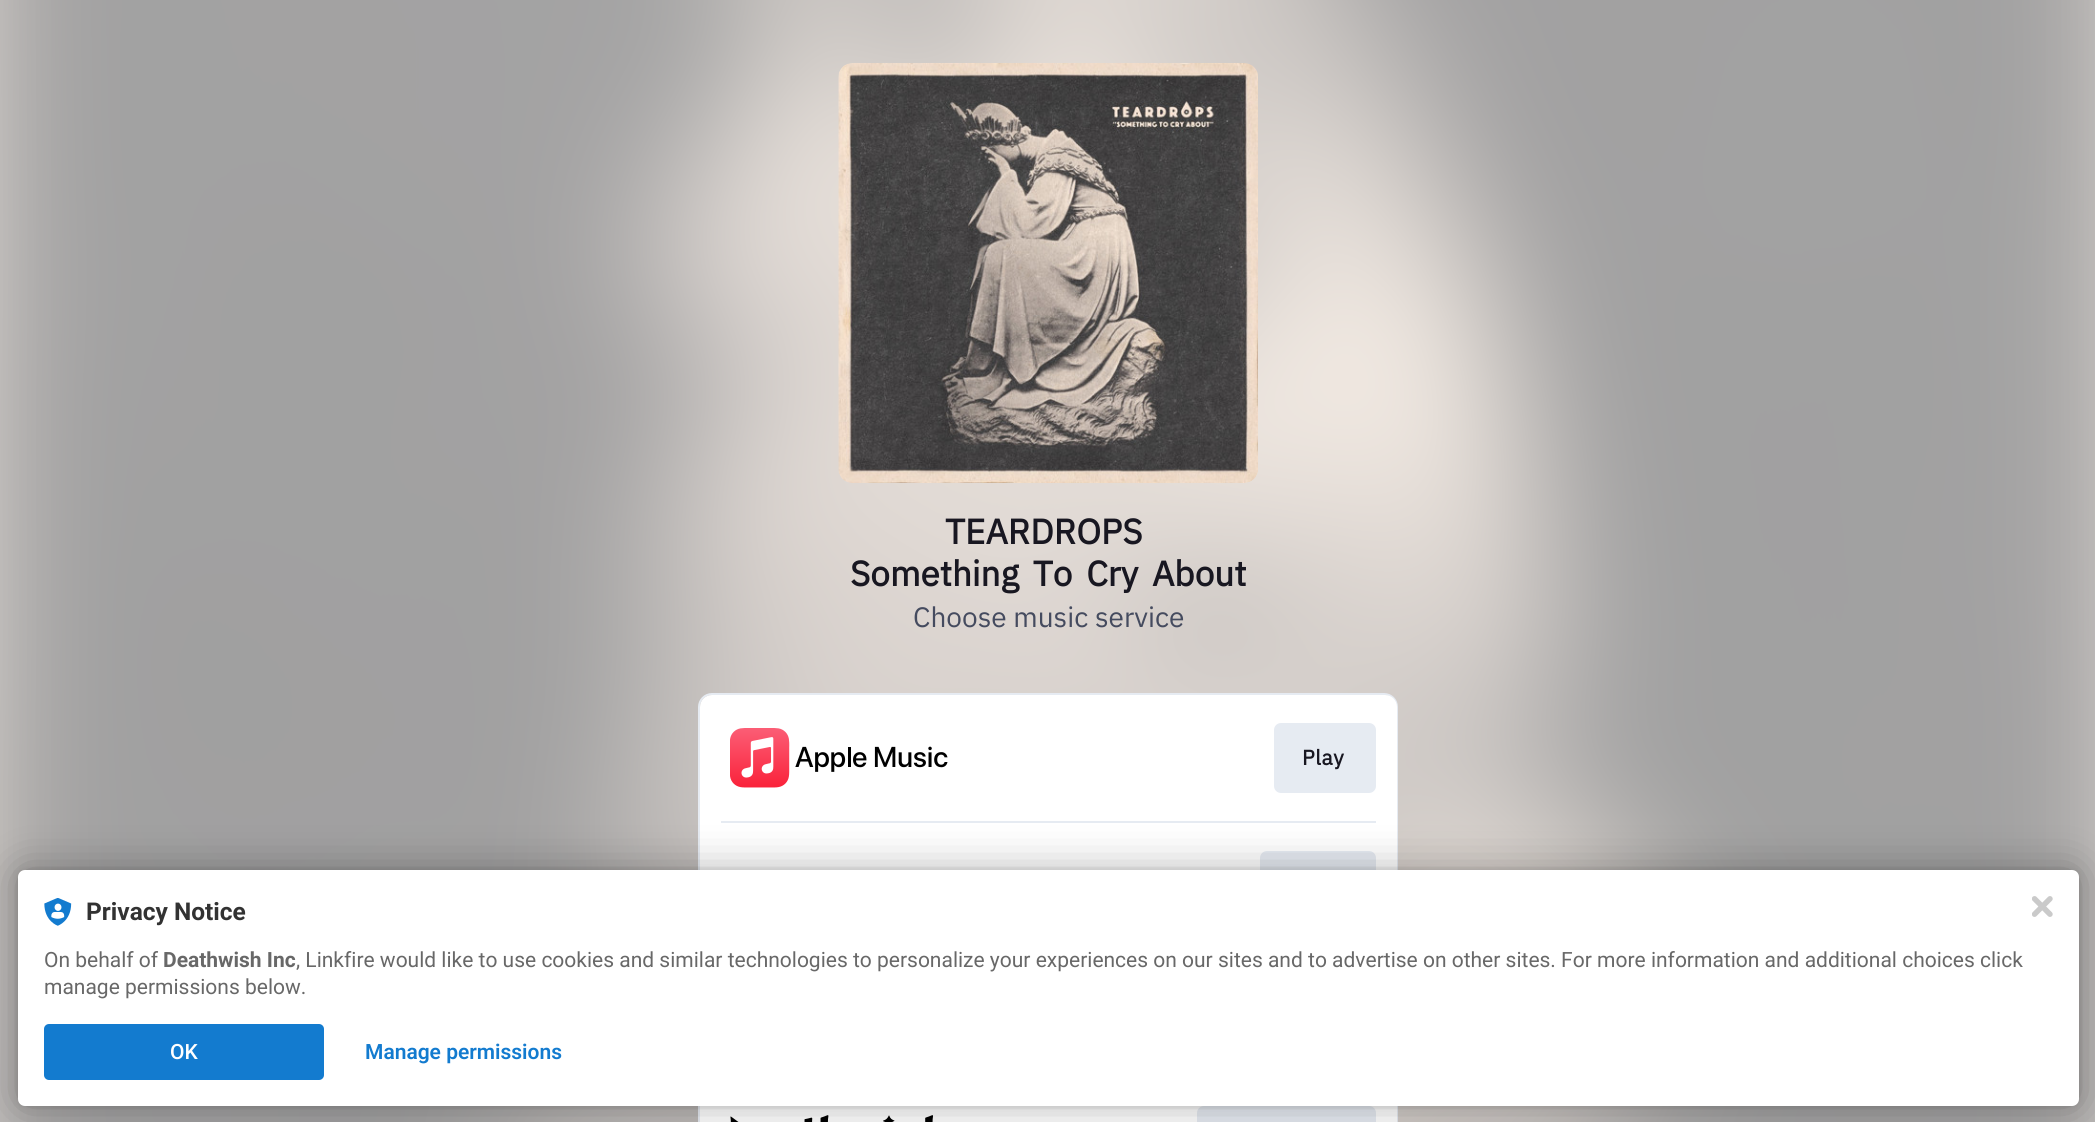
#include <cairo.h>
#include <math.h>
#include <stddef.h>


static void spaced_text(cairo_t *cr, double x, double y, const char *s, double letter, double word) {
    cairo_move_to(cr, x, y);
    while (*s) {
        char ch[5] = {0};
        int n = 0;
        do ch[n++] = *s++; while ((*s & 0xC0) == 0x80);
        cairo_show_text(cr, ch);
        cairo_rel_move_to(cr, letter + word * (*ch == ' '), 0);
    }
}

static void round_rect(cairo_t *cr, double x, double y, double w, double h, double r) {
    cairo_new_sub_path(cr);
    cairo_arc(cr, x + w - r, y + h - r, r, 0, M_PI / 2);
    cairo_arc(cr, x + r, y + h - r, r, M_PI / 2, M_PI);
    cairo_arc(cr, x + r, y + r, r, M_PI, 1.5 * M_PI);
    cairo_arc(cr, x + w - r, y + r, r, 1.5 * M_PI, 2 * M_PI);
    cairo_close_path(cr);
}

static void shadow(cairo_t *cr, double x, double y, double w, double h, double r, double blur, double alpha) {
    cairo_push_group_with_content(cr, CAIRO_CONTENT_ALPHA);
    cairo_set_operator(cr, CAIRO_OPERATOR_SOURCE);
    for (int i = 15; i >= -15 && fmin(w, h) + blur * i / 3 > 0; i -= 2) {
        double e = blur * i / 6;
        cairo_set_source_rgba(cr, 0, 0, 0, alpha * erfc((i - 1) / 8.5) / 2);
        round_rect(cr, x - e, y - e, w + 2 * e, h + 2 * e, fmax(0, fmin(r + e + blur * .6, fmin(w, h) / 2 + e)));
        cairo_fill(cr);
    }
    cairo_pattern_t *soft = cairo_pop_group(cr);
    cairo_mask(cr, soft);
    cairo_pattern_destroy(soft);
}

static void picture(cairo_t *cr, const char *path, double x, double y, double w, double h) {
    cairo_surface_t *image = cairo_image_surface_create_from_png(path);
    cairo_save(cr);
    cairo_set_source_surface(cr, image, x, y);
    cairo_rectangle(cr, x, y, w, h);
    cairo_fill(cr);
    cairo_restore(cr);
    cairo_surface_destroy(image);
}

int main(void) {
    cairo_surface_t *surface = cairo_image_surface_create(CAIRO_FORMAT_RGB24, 2095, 1122);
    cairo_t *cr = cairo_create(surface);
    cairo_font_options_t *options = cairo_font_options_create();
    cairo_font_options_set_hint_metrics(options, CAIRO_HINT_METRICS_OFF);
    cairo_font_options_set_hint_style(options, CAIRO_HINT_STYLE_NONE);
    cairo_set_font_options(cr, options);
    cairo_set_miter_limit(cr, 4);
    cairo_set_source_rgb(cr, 1, 1, 1);
    cairo_paint(cr);
    picture(cr, "img1.png", 0, 0, 2095, 1122);
    picture(cr, "img2.png", 838, 63, 420, 420);
    cairo_select_font_face(cr, "IBM Plex Sans", CAIRO_FONT_SLANT_NORMAL, CAIRO_FONT_WEIGHT_BOLD);
    cairo_set_font_size(cr, 35);
    cairo_set_source_rgb(cr, 0.094, 0.09, 0.129);
    cairo_move_to(cr, 945, 544);
    cairo_show_text(cr, "TEARDROPS");
    spaced_text(cr, 850, 586, "Something To Cry About", 0, 5.5);
    cairo_select_font_face(cr, "IBM Plex Sans", CAIRO_FONT_SLANT_NORMAL, CAIRO_FONT_WEIGHT_NORMAL);
    cairo_set_font_size(cr, 28);
    cairo_set_source_rgb(cr, 0.271, 0.294, 0.373);
    cairo_move_to(cr, 913, 627);
    cairo_show_text(cr, "Choose music service");
    round_rect(cr, 699, 694, 698, 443, 13);
    cairo_set_source_rgb(cr, 0.902, 0.918, 0.949);
    cairo_stroke(cr);
    cairo_set_source_rgb(cr, 1, 1, 1);
    round_rect(cr, 700, 695, 697, 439, 12);
    cairo_fill(cr);
    picture(cr, "img3.png", 730, 728, 218, 60);
    cairo_set_source_rgb(cr, 0.902, 0.918, 0.949);
    round_rect(cr, 1274, 723, 102, 70, 7);
    cairo_fill(cr);
    cairo_select_font_face(cr, "IBM Plex Sans", CAIRO_FONT_SLANT_NORMAL, CAIRO_FONT_WEIGHT_BOLD);
    cairo_set_font_size(cr, 21);
    cairo_set_source_rgb(cr, 0.094, 0.09, 0.129);
    spaced_text(cr, 1302, 765, "Play", 0.5, 0);
    cairo_set_source_rgb(cr, 0.902, 0.918, 0.949);
    cairo_rectangle(cr, 721, 821, 655, 2);
    cairo_fill(cr);
    round_rect(cr, 1260, 851, 116, 70, 7);
    cairo_fill(cr);
    picture(cr, "img4.png", 730, 1115, 203, 7);
    round_rect(cr, 1197, 1106, 179, 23, 7);
    cairo_fill(cr);
    cairo_set_source_rgb(cr, 0, 0, 0);
    shadow(cr, 18, 870, 2061, 236, 7, 3.5, 0.12);
    shadow(cr, 18, 870, 2061, 236, 7, 21, 0.3);
    cairo_set_source_rgb(cr, 1, 1, 1);
    round_rect(cr, 18, 870, 2061, 236, 7);
    cairo_fill(cr);
    picture(cr, "img5.png", 44, 898, 28, 28);
    cairo_select_font_face(cr, "Roboto", CAIRO_FONT_SLANT_NORMAL, CAIRO_FONT_WEIGHT_BOLD);
    cairo_set_font_size(cr, 24.5);
    cairo_set_source_rgb(cr, 0.196, 0.196, 0.196);
    cairo_move_to(cr, 86, 920);
    cairo_show_text(cr, "Privacy Notice");
    cairo_select_font_face(cr, "Roboto", CAIRO_FONT_SLANT_NORMAL, CAIRO_FONT_WEIGHT_NORMAL);
    cairo_set_font_size(cr, 21);
    cairo_set_source_rgb(cr, 0.408, 0.408, 0.408);
    cairo_move_to(cr, 44, 967);
    cairo_show_text(cr, "On behalf of");
    cairo_select_font_face(cr, "Roboto", CAIRO_FONT_SLANT_NORMAL, CAIRO_FONT_WEIGHT_BOLD);
    cairo_move_to(cr, 163, 967);
    cairo_show_text(cr, "Deathwish Inc");
    cairo_select_font_face(cr, "Roboto", CAIRO_FONT_SLANT_NORMAL, CAIRO_FONT_WEIGHT_NORMAL);
    cairo_move_to(cr, 296, 967);
    cairo_show_text(cr, ", Linkfire would like to use cookies and similar technologies to personalize your experiences on our sites and to advertise on other sites. For more information and additional choices click");
    cairo_move_to(cr, 44, 994);
    cairo_show_text(cr, "manage permissions below.");
    cairo_set_source_rgb(cr, 0.075, 0.482, 0.812);
    round_rect(cr, 44, 1024, 280, 56, 5);
    cairo_fill(cr);
    cairo_select_font_face(cr, "Roboto Medium", CAIRO_FONT_SLANT_NORMAL, CAIRO_FONT_WEIGHT_NORMAL);
    cairo_set_source_rgb(cr, 1, 1, 1);
    cairo_move_to(cr, 170, 1059);
    cairo_show_text(cr, "OK");
    cairo_select_font_face(cr, "Roboto SemiBold", CAIRO_FONT_SLANT_NORMAL, CAIRO_FONT_WEIGHT_NORMAL);
    cairo_set_source_rgb(cr, 0.075, 0.482, 0.812);
    cairo_move_to(cr, 365, 1059);
    cairo_show_text(cr, "Manage permissions");
    picture(cr, "img6.png", 2032, 896, 21, 21);
    cairo_surface_write_to_png(surface, "page.png");
    cairo_font_options_destroy(options);
    cairo_destroy(cr);
    cairo_surface_destroy(surface);
    return 0;
}
